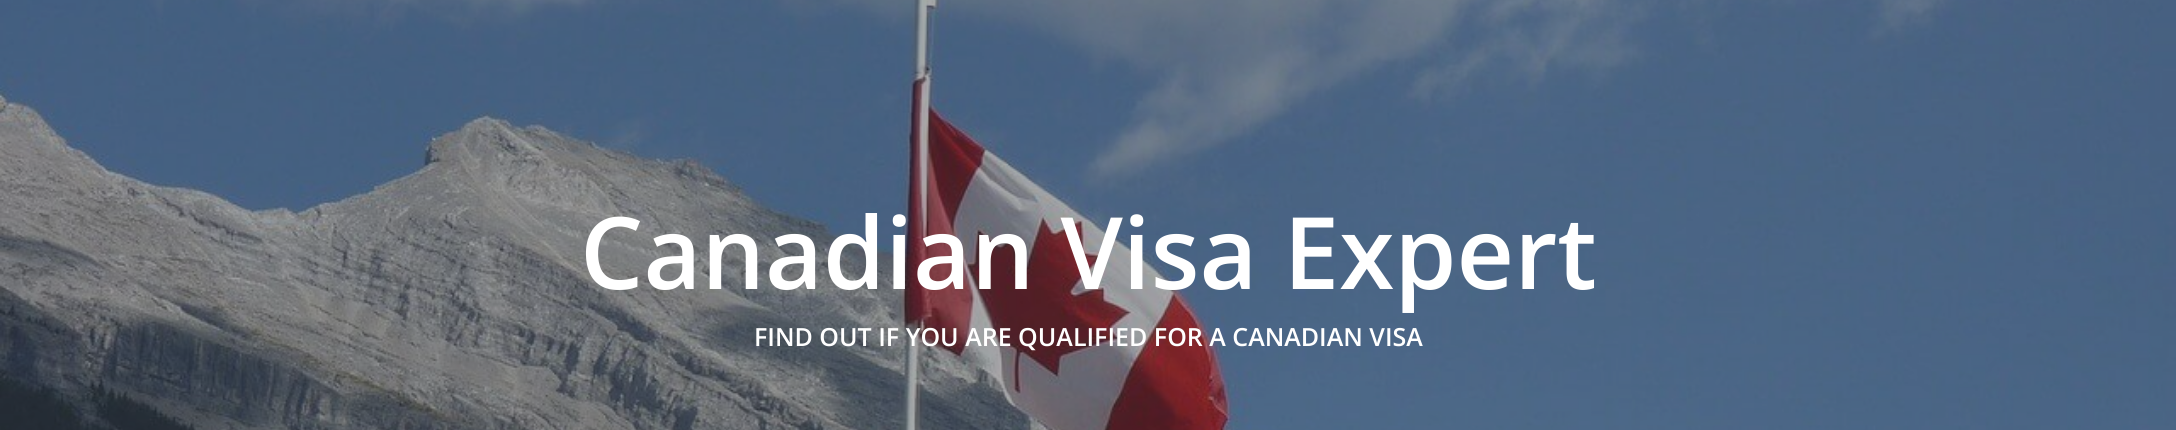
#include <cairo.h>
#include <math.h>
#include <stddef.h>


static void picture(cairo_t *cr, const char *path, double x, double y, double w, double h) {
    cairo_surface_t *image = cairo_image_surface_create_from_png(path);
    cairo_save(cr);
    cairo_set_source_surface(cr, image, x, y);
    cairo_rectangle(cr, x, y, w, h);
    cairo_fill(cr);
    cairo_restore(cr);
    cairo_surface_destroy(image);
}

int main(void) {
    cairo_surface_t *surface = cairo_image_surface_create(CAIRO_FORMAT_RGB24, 2176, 430);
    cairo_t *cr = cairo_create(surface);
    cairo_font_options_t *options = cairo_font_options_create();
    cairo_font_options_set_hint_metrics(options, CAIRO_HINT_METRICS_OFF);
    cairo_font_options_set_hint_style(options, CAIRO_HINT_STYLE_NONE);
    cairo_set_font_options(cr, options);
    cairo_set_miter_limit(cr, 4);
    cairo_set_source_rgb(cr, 1, 1, 1);
    cairo_paint(cr);
    picture(cr, "img1.png", 0, 0, 2176, 430);
    cairo_select_font_face(cr, "Open Sans SemiBold", CAIRO_FONT_SLANT_NORMAL, CAIRO_FONT_WEIGHT_NORMAL);
    cairo_set_font_size(cr, 100);
    cairo_set_source_rgb(cr, 1, 1, 1);
    cairo_move_to(cr, 580, 289);
    cairo_show_text(cr, "Canadian Visa Expert");
    cairo_set_font_size(cr, 25);
    cairo_move_to(cr, 754, 346);
    cairo_show_text(cr, "FIND OUT IF YOU ARE QUALIFIED FOR A CANADIAN VISA");
    cairo_surface_write_to_png(surface, "page.png");
    cairo_font_options_destroy(options);
    cairo_destroy(cr);
    cairo_surface_destroy(surface);
    return 0;
}
